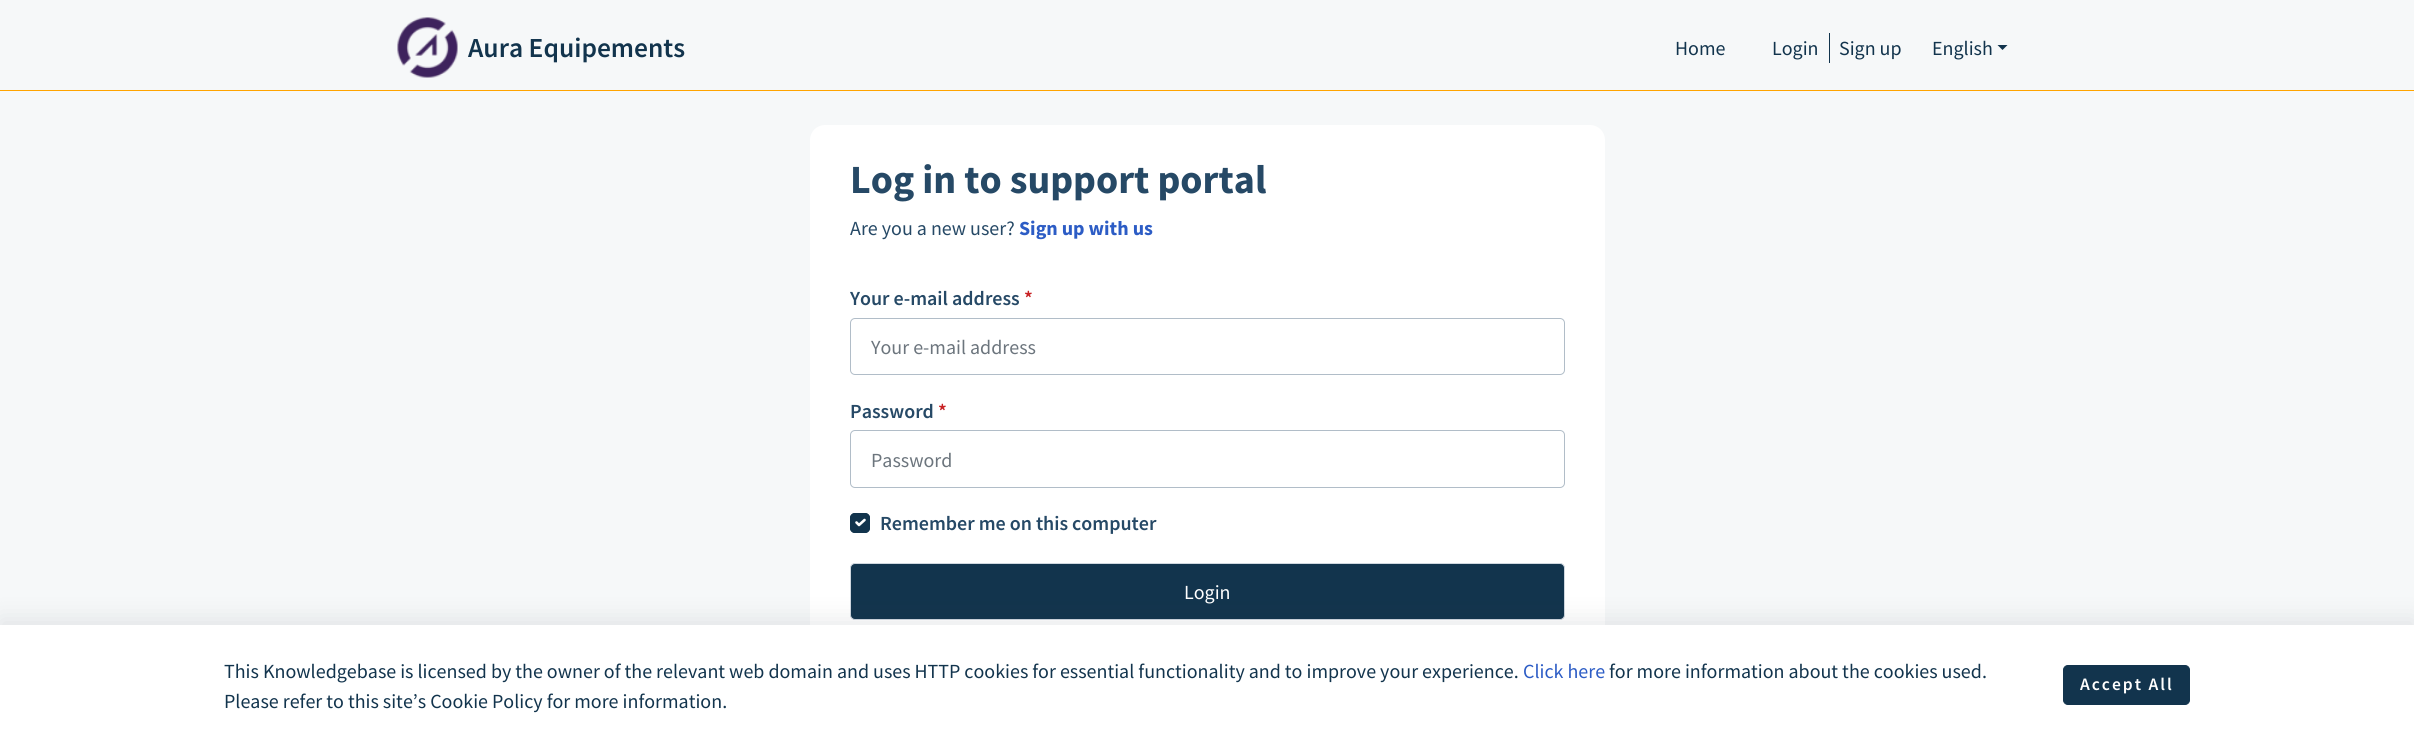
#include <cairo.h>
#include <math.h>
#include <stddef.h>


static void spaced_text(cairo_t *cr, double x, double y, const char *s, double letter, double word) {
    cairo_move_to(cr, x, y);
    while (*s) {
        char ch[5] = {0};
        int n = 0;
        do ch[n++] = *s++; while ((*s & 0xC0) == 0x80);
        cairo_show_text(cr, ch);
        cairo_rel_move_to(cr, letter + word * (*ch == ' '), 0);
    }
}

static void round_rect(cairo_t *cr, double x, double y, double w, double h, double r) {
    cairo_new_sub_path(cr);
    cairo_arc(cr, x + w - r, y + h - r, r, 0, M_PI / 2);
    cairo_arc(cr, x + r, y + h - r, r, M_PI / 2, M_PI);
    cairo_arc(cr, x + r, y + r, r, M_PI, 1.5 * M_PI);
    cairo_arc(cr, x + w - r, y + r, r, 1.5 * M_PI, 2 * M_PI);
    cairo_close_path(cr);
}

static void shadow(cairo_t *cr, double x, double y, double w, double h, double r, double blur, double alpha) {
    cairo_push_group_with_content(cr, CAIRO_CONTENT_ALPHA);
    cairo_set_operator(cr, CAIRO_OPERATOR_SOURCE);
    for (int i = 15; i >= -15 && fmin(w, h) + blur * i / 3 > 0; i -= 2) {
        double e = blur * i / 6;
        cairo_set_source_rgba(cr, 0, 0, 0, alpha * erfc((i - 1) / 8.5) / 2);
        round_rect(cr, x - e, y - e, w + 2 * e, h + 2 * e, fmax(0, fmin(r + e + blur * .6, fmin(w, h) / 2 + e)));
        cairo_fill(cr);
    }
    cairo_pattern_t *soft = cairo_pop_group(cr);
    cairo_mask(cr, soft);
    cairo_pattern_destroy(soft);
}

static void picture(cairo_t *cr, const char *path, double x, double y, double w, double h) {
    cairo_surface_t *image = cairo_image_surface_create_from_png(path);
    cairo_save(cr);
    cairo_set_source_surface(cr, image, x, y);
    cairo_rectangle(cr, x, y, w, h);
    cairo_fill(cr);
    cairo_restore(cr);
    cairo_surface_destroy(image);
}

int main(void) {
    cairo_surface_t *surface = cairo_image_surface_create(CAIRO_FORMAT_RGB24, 2414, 745);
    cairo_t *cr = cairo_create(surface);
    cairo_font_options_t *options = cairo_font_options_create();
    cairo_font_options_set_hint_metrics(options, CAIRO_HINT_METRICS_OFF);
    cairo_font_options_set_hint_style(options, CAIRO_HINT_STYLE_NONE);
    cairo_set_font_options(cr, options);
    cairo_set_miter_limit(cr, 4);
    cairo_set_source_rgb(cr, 0.961, 0.969, 0.976);
    cairo_paint(cr);
    cairo_set_source_rgb(cr, 1, 0.643, 0);
    cairo_rectangle(cr, 0, 90, 2414, 1);
    cairo_fill(cr);
    picture(cr, "img1.png", 397, 17, 61, 61);
    cairo_select_font_face(cr, "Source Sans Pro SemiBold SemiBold", CAIRO_FONT_SLANT_NORMAL, CAIRO_FONT_WEIGHT_NORMAL);
    cairo_set_font_size(cr, 27.5);
    cairo_set_source_rgb(cr, 0.071, 0.204, 0.302);
    cairo_move_to(cr, 468, 57);
    cairo_show_text(cr, "Aura Equipements");
    cairo_select_font_face(cr, "Source Sans Pro", CAIRO_FONT_SLANT_NORMAL, CAIRO_FONT_WEIGHT_NORMAL);
    cairo_set_font_size(cr, 20);
    cairo_move_to(cr, 1675, 55);
    cairo_show_text(cr, "Home");
    cairo_move_to(cr, 1772, 55);
    cairo_show_text(cr, "Login");
    cairo_rectangle(cr, 1829, 33, 1, 30);
    cairo_fill(cr);
    cairo_move_to(cr, 1839, 55);
    cairo_show_text(cr, "Sign up");
    cairo_move_to(cr, 1932, 55);
    cairo_show_text(cr, "English");
    cairo_new_path(cr);
    cairo_move_to(cr, 1997.5, 45);
    cairo_line_to(cr, 2007.5, 45);
    cairo_line_to(cr, 2002.5, 50);
    cairo_close_path(cr);
    cairo_fill(cr);
    cairo_set_source_rgb(cr, 1, 1, 1);
    round_rect(cr, 810, 125, 795, 576, 15);
    cairo_fill(cr);
    cairo_select_font_face(cr, "Source Sans Pro", CAIRO_FONT_SLANT_NORMAL, CAIRO_FONT_WEIGHT_BOLD);
    cairo_set_font_size(cr, 40);
    cairo_set_source_rgb(cr, 0.149, 0.286, 0.4);
    cairo_move_to(cr, 850, 193);
    cairo_show_text(cr, "Log in to support portal");
    cairo_select_font_face(cr, "Source Sans Pro", CAIRO_FONT_SLANT_NORMAL, CAIRO_FONT_WEIGHT_NORMAL);
    cairo_set_font_size(cr, 20);
    cairo_move_to(cr, 850, 235);
    cairo_show_text(cr, "Are you a new user?");
    cairo_select_font_face(cr, "Source Sans Pro", CAIRO_FONT_SLANT_NORMAL, CAIRO_FONT_WEIGHT_BOLD);
    cairo_set_source_rgb(cr, 0.173, 0.361, 0.773);
    cairo_move_to(cr, 1019, 235);
    cairo_show_text(cr, "Sign up with us");
    cairo_select_font_face(cr, "Source Sans Pro SemiBold SemiBold", CAIRO_FONT_SLANT_NORMAL, CAIRO_FONT_WEIGHT_NORMAL);
    cairo_set_source_rgb(cr, 0.149, 0.286, 0.4);
    cairo_move_to(cr, 850, 305);
    cairo_show_text(cr, "Your e-mail address");
    cairo_set_source_rgb(cr, 0.784, 0.129, 0.141);
    cairo_move_to(cr, 1024, 305);
    cairo_show_text(cr, "*");
    round_rect(cr, 850.5, 318.5, 714, 56, 4.5);
    cairo_set_source_rgb(cr, 0.694, 0.741, 0.784);
    cairo_set_line_width(cr, 1);
    cairo_stroke(cr);
    cairo_select_font_face(cr, "Source Sans Pro", CAIRO_FONT_SLANT_NORMAL, CAIRO_FONT_WEIGHT_NORMAL);
    cairo_set_source_rgb(cr, 0.424, 0.459, 0.49);
    cairo_move_to(cr, 871, 354);
    cairo_show_text(cr, "Your e-mail address");
    cairo_select_font_face(cr, "Source Sans Pro SemiBold SemiBold", CAIRO_FONT_SLANT_NORMAL, CAIRO_FONT_WEIGHT_NORMAL);
    cairo_set_source_rgb(cr, 0.149, 0.286, 0.4);
    cairo_move_to(cr, 850, 418);
    cairo_show_text(cr, "Password");
    cairo_set_source_rgb(cr, 0.784, 0.129, 0.141);
    cairo_move_to(cr, 938, 418);
    cairo_show_text(cr, "*");
    round_rect(cr, 850.5, 430.5, 714, 57, 4.5);
    cairo_set_source_rgb(cr, 0.694, 0.741, 0.784);
    cairo_stroke(cr);
    cairo_select_font_face(cr, "Source Sans Pro", CAIRO_FONT_SLANT_NORMAL, CAIRO_FONT_WEIGHT_NORMAL);
    cairo_set_source_rgb(cr, 0.424, 0.459, 0.49);
    cairo_move_to(cr, 871, 467);
    cairo_show_text(cr, "Password");
    cairo_set_source_rgb(cr, 0.071, 0.204, 0.302);
    round_rect(cr, 850, 513, 20, 20, 5);
    cairo_fill(cr);
    cairo_new_path(cr);
    cairo_move_to(cr, 856.5, 522.5);
    cairo_line_to(cr, 859, 525);
    cairo_line_to(cr, 864.5, 520);
    cairo_set_source_rgb(cr, 1, 1, 1);
    cairo_set_line_width(cr, 2.6);
    cairo_set_line_cap(cr, CAIRO_LINE_CAP_ROUND);
    cairo_set_line_join(cr, CAIRO_LINE_JOIN_ROUND);
    cairo_stroke(cr);
    round_rect(cr, 850.5, 513.5, 19, 19, 4.5);
    cairo_set_source_rgb(cr, 0.071, 0.204, 0.302);
    cairo_set_line_width(cr, 1);
    cairo_set_line_cap(cr, CAIRO_LINE_CAP_BUTT);
    cairo_set_line_join(cr, CAIRO_LINE_JOIN_MITER);
    cairo_stroke(cr);
    cairo_select_font_face(cr, "Source Sans Pro SemiBold SemiBold", CAIRO_FONT_SLANT_NORMAL, CAIRO_FONT_WEIGHT_NORMAL);
    cairo_set_source_rgb(cr, 0.149, 0.286, 0.4);
    cairo_move_to(cr, 880, 530);
    cairo_show_text(cr, "Remember me on this computer");
    cairo_set_source_rgb(cr, 0.071, 0.204, 0.302);
    round_rect(cr, 850.5, 563.5, 714, 56, 4.5);
    cairo_fill_preserve(cr);
    cairo_set_source_rgb(cr, 0.812, 0.843, 0.875);
    cairo_stroke(cr);
    cairo_select_font_face(cr, "Source Sans Pro", CAIRO_FONT_SLANT_NORMAL, CAIRO_FONT_WEIGHT_NORMAL);
    cairo_set_source_rgb(cr, 1, 1, 1);
    cairo_move_to(cr, 1184, 599);
    cairo_show_text(cr, "Login");
    cairo_set_source_rgb(cr, 0.153, 0.192, 0.227);
    shadow(cr, 0, 619, 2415, 120, 0, 12, 0.1);
    cairo_set_source_rgb(cr, 1, 1, 1);
    cairo_rectangle(cr, 0, 625, 2414, 120);
    cairo_fill(cr);
    cairo_set_source_rgb(cr, 0.071, 0.204, 0.302);
    cairo_move_to(cr, 224, 678);
    cairo_show_text(cr, "This Knowledgebase is licensed by the owner of the relevant web domain and uses HTTP cookies for essential functionality and to improve your experience.");
    cairo_set_source_rgb(cr, 0.173, 0.361, 0.773);
    cairo_move_to(cr, 1523, 678);
    cairo_show_text(cr, "Click here");
    cairo_set_source_rgb(cr, 0.071, 0.204, 0.302);
    cairo_move_to(cr, 1609, 678);
    cairo_show_text(cr, "for more information about the cookies used.");
    cairo_move_to(cr, 224, 708);
    cairo_show_text(cr, "Please refer to this site’s Cookie Policy for more information.");
    round_rect(cr, 2063.5, 665.5, 126, 39, 4.5);
    cairo_fill_preserve(cr);
    cairo_stroke(cr);
    cairo_select_font_face(cr, "Source Sans Pro SemiBold SemiBold", CAIRO_FONT_SLANT_NORMAL, CAIRO_FONT_WEIGHT_NORMAL);
    cairo_set_font_size(cr, 17.5);
    cairo_set_source_rgb(cr, 1, 1, 1);
    spaced_text(cr, 2080, 690, "Accept All", 2, 0);
    cairo_surface_write_to_png(surface, "page.png");
    cairo_font_options_destroy(options);
    cairo_destroy(cr);
    cairo_surface_destroy(surface);
    return 0;
}
